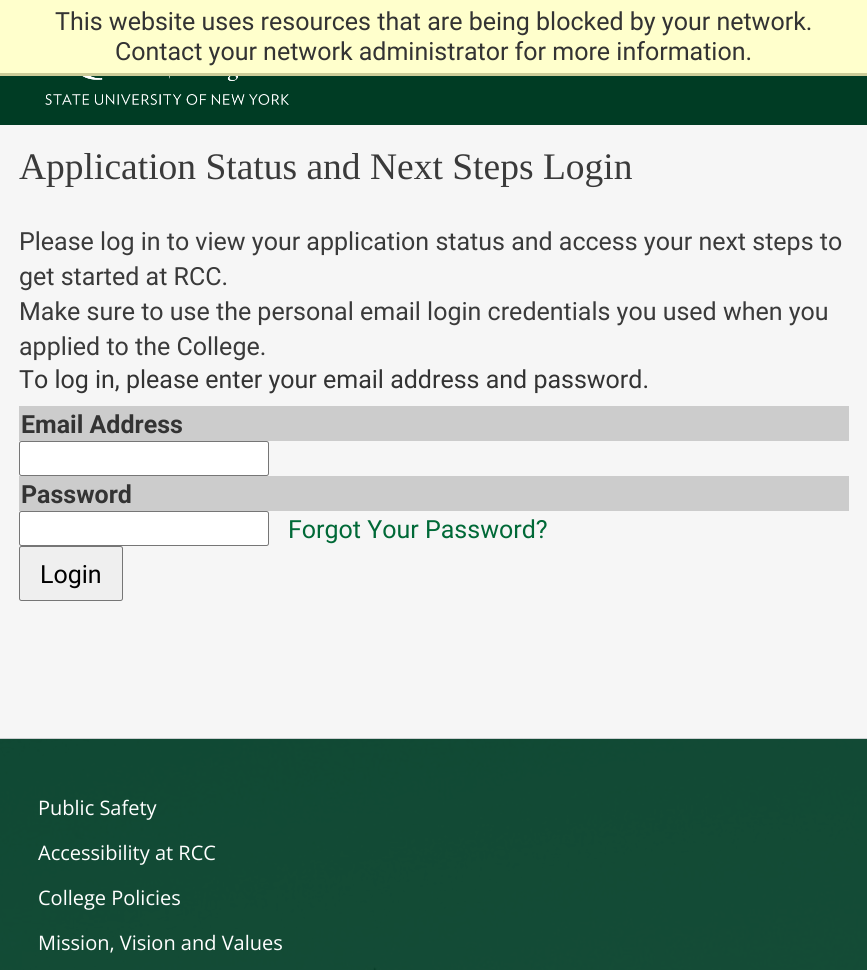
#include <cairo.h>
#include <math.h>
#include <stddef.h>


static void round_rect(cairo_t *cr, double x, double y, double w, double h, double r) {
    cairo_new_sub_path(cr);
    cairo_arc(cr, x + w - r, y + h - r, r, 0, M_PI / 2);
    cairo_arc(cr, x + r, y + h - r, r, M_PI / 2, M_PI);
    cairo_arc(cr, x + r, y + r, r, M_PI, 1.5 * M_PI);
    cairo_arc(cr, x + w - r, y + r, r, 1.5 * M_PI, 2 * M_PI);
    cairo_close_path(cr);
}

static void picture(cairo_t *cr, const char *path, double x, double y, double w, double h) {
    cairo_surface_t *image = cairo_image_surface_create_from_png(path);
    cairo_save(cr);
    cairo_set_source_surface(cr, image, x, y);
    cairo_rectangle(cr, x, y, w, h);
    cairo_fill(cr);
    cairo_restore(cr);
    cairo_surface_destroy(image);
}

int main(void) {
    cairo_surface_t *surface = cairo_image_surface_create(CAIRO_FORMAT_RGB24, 867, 970);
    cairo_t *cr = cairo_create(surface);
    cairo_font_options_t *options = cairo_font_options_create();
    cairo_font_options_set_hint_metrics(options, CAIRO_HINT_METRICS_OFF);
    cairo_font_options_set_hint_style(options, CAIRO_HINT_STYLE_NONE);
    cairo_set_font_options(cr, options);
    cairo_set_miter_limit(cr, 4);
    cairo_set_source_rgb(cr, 0.961, 0.961, 0.961);
    cairo_paint(cr);
    cairo_set_source_rgb(cr, 1, 1, 0.8);
    cairo_rectangle(cr, 0, 0, 867, 73);
    cairo_fill(cr);
    cairo_set_source_rgb(cr, 0.8, 0.8, 0.6);
    cairo_rectangle(cr, 0, 73, 867, 3);
    cairo_fill(cr);
    cairo_select_font_face(cr, "Roboto", CAIRO_FONT_SLANT_NORMAL, CAIRO_FONT_WEIGHT_NORMAL);
    cairo_set_font_size(cr, 25);
    cairo_set_source_rgb(cr, 0.2, 0.2, 0.2);
    cairo_move_to(cr, 55, 30);
    cairo_show_text(cr, "This website uses resources that are being blocked by your network.");
    cairo_move_to(cr, 115, 60);
    cairo_show_text(cr, "Contact your network administrator for more information.");
    cairo_set_source_rgb(cr, 0, 0.235, 0.141);
    cairo_rectangle(cr, 0, 76, 867, 49);
    cairo_fill(cr);
    picture(cr, "img1.png", 45, 76, 244, 29);
    cairo_select_font_face(cr, "Liberation Serif", CAIRO_FONT_SLANT_NORMAL, CAIRO_FONT_WEIGHT_NORMAL);
    cairo_set_font_size(cr, 37.5);
    cairo_set_source_rgb(cr, 0.227, 0.227, 0.227);
    cairo_move_to(cr, 19, 179);
    cairo_show_text(cr, "Application Status and Next Steps Login");
    cairo_select_font_face(cr, "Roboto", CAIRO_FONT_SLANT_NORMAL, CAIRO_FONT_WEIGHT_NORMAL);
    cairo_set_font_size(cr, 25);
    cairo_move_to(cr, 19, 250);
    cairo_show_text(cr, "Please log in to view your application status and access your next steps to");
    cairo_move_to(cr, 19, 285);
    cairo_show_text(cr, "get started at RCC.");
    cairo_move_to(cr, 19, 320);
    cairo_show_text(cr, "Make sure to use the personal email login credentials you used when you");
    cairo_move_to(cr, 19, 355);
    cairo_show_text(cr, "applied to the College.");
    cairo_set_source_rgb(cr, 0.2, 0.2, 0.2);
    cairo_move_to(cr, 19, 388);
    cairo_show_text(cr, "To log in, please enter your email address and password.");
    cairo_set_source_rgb(cr, 0.8, 0.8, 0.8);
    cairo_rectangle(cr, 19, 406, 830, 35);
    cairo_fill(cr);
    cairo_select_font_face(cr, "Roboto", CAIRO_FONT_SLANT_NORMAL, CAIRO_FONT_WEIGHT_BOLD);
    cairo_set_source_rgb(cr, 0.2, 0.2, 0.2);
    cairo_move_to(cr, 21, 433);
    cairo_show_text(cr, "Email Address");
    cairo_set_source_rgb(cr, 1, 1, 1);
    round_rect(cr, 19.5, 441.5, 249, 34, 2);
    cairo_fill_preserve(cr);
    cairo_set_source_rgb(cr, 0.463, 0.463, 0.463);
    cairo_set_line_width(cr, 1);
    cairo_stroke(cr);
    cairo_set_source_rgb(cr, 0.8, 0.8, 0.8);
    cairo_rectangle(cr, 19, 476, 830, 35);
    cairo_fill(cr);
    cairo_set_source_rgb(cr, 0.2, 0.2, 0.2);
    cairo_move_to(cr, 21, 503);
    cairo_show_text(cr, "Password");
    cairo_set_source_rgb(cr, 1, 1, 1);
    round_rect(cr, 19.5, 511.5, 249, 34, 2);
    cairo_fill_preserve(cr);
    cairo_set_source_rgb(cr, 0.463, 0.463, 0.463);
    cairo_stroke(cr);
    cairo_select_font_face(cr, "Roboto", CAIRO_FONT_SLANT_NORMAL, CAIRO_FONT_WEIGHT_NORMAL);
    cairo_set_source_rgb(cr, 0, 0.412, 0.216);
    cairo_move_to(cr, 288, 538);
    cairo_show_text(cr, "Forgot Your Password?");
    cairo_set_source_rgb(cr, 0.937, 0.937, 0.937);
    round_rect(cr, 19.5, 546.5, 103, 54, 2);
    cairo_fill_preserve(cr);
    cairo_set_source_rgb(cr, 0.463, 0.463, 0.463);
    cairo_stroke(cr);
    cairo_set_source_rgb(cr, 0, 0, 0);
    cairo_move_to(cr, 40, 583);
    cairo_show_text(cr, "Login");
    picture(cr, "img2.png", 0, 738, 867, 232);
    cairo_select_font_face(cr, "Open Sans", CAIRO_FONT_SLANT_NORMAL, CAIRO_FONT_WEIGHT_NORMAL);
    cairo_set_font_size(cr, 20);
    cairo_set_source_rgb(cr, 1, 1, 1);
    cairo_move_to(cr, 38, 815);
    cairo_show_text(cr, "Public Safety");
    cairo_move_to(cr, 38, 860);
    cairo_show_text(cr, "Accessibility at RCC");
    cairo_move_to(cr, 38, 905);
    cairo_show_text(cr, "College Policies");
    cairo_move_to(cr, 38, 950);
    cairo_show_text(cr, "Mission, Vision and Values");
    cairo_surface_write_to_png(surface, "page.png");
    cairo_font_options_destroy(options);
    cairo_destroy(cr);
    cairo_surface_destroy(surface);
    return 0;
}
